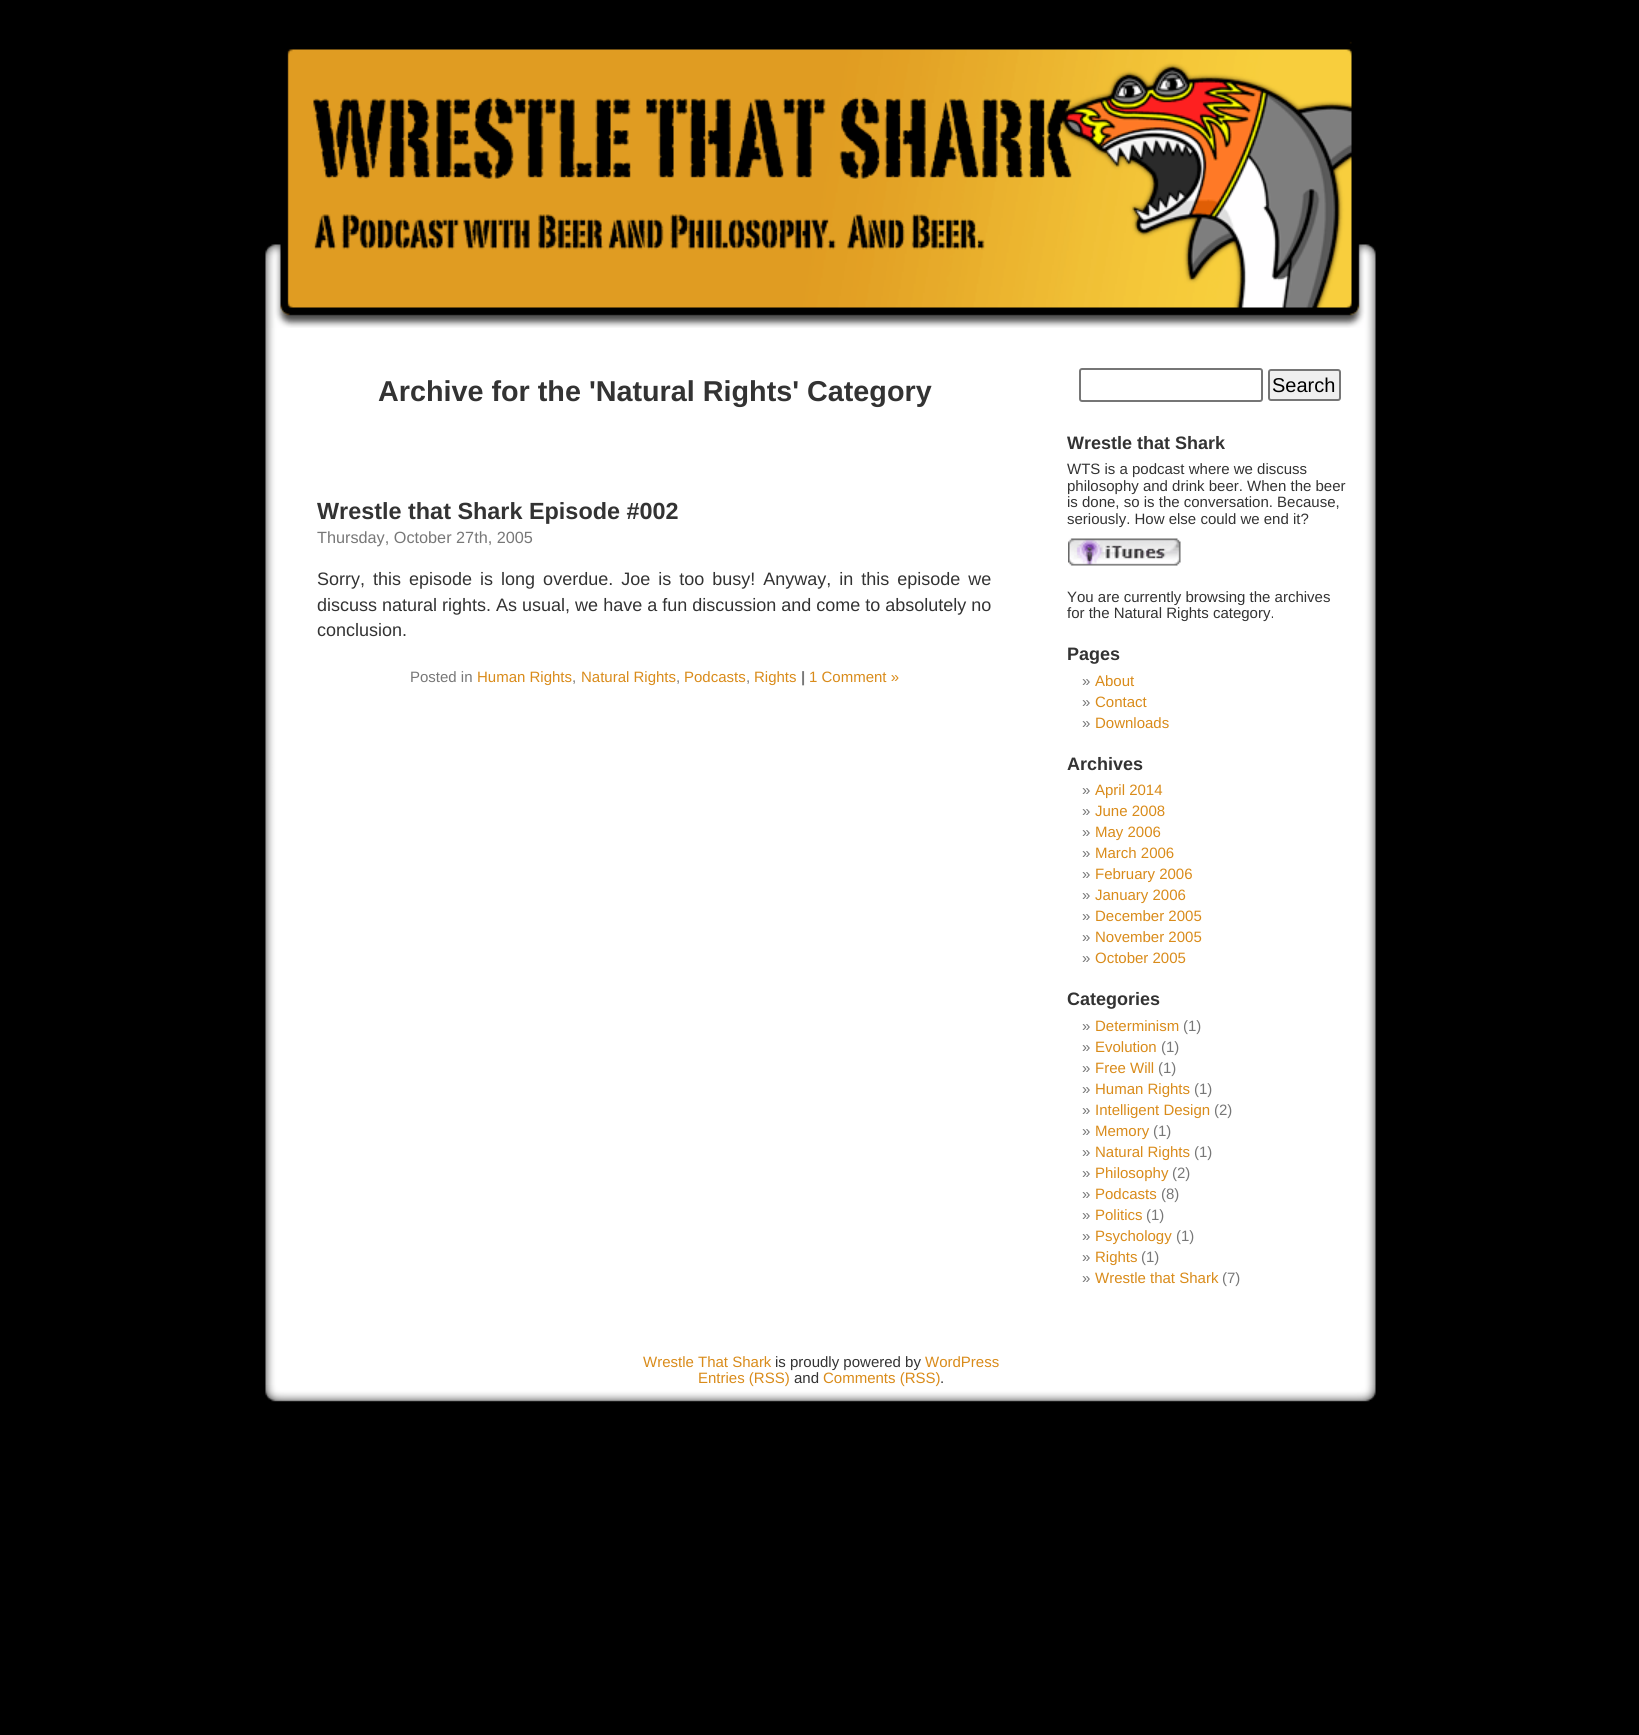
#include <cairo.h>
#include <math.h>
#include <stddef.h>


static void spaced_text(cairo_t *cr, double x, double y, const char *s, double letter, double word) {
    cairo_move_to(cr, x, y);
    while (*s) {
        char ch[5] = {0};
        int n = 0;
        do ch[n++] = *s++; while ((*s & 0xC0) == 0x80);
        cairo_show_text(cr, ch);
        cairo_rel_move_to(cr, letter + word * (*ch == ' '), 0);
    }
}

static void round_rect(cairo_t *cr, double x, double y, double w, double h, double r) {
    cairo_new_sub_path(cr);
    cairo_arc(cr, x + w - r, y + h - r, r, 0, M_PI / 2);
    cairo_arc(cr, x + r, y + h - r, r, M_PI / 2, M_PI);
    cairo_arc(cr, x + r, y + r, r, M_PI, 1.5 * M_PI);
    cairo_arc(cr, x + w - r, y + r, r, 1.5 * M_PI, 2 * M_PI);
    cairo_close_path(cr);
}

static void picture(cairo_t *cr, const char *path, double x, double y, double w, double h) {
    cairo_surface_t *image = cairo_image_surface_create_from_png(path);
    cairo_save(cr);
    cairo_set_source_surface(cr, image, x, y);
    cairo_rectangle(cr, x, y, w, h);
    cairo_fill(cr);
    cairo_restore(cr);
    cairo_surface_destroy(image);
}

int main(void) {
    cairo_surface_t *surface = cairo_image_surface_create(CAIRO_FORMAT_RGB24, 1639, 1735);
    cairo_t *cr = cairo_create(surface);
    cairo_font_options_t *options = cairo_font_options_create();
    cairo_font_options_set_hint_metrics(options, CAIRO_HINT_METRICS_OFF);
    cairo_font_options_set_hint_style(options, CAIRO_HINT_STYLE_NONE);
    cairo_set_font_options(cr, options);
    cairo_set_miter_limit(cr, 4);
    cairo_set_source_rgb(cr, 0, 0, 0);
    cairo_paint(cr);
    picture(cr, "img1.png", 265, 328, 1111, 1057);
    picture(cr, "img2.png", 265, 30, 1111, 298);
    cairo_select_font_face(cr, "Liberation Sans", CAIRO_FONT_SLANT_NORMAL, CAIRO_FONT_WEIGHT_BOLD);
    cairo_set_font_size(cr, 28.75);
    cairo_set_source_rgb(cr, 0.2, 0.2, 0.2);
    cairo_move_to(cr, 378, 401);
    cairo_show_text(cr, "Archive for the 'Natural Rights' Category");
    cairo_set_font_size(cr, 23.4);
    cairo_move_to(cr, 317, 519);
    cairo_show_text(cr, "Wrestle that Shark Episode #002");
    cairo_select_font_face(cr, "Liberation Sans", CAIRO_FONT_SLANT_NORMAL, CAIRO_FONT_WEIGHT_NORMAL);
    cairo_set_font_size(cr, 16.25);
    cairo_set_source_rgb(cr, 0.467, 0.467, 0.467);
    cairo_move_to(cr, 317, 543);
    cairo_show_text(cr, "Thursday, October 27th, 2005");
    cairo_set_font_size(cr, 18);
    cairo_set_source_rgb(cr, 0.2, 0.2, 0.2);
    spaced_text(cr, 317, 585, "Sorry, this episode is long overdue. Joe is too busy! Anyway, in this episode we", 0, 3);
    cairo_move_to(cr, 317, 611);
    cairo_show_text(cr, "discuss natural rights. As usual, we have a fun discussion and come to absolutely no");
    cairo_move_to(cr, 317, 636);
    cairo_show_text(cr, "conclusion.");
    cairo_set_font_size(cr, 15);
    cairo_set_source_rgb(cr, 0.467, 0.467, 0.467);
    cairo_move_to(cr, 410, 682);
    cairo_show_text(cr, "Posted in");
    cairo_set_source_rgb(cr, 0.851, 0.545, 0.102);
    cairo_move_to(cr, 477, 682);
    cairo_show_text(cr, "Human Rights");
    cairo_set_source_rgb(cr, 0.467, 0.467, 0.467);
    cairo_move_to(cr, 572, 682);
    cairo_show_text(cr, ",");
    cairo_set_source_rgb(cr, 0.851, 0.545, 0.102);
    cairo_move_to(cr, 581, 682);
    cairo_show_text(cr, "Natural Rights");
    cairo_set_source_rgb(cr, 0.467, 0.467, 0.467);
    cairo_move_to(cr, 676, 682);
    cairo_show_text(cr, ",");
    cairo_set_source_rgb(cr, 0.851, 0.545, 0.102);
    cairo_move_to(cr, 684, 682);
    cairo_show_text(cr, "Podcasts");
    cairo_set_source_rgb(cr, 0.467, 0.467, 0.467);
    cairo_move_to(cr, 746, 682);
    cairo_show_text(cr, ",");
    cairo_set_source_rgb(cr, 0.851, 0.545, 0.102);
    cairo_move_to(cr, 754, 682);
    cairo_show_text(cr, "Rights");
    cairo_select_font_face(cr, "Liberation Sans", CAIRO_FONT_SLANT_NORMAL, CAIRO_FONT_WEIGHT_BOLD);
    cairo_set_source_rgb(cr, 0.467, 0.467, 0.467);
    cairo_move_to(cr, 801, 682);
    cairo_show_text(cr, "|");
    cairo_select_font_face(cr, "Liberation Sans", CAIRO_FONT_SLANT_NORMAL, CAIRO_FONT_WEIGHT_NORMAL);
    cairo_set_source_rgb(cr, 0.851, 0.545, 0.102);
    cairo_move_to(cr, 809, 682);
    cairo_show_text(cr, "1 Comment »");
    round_rect(cr, 1080, 369, 182, 32, 2);
    cairo_set_source_rgb(cr, 0.463, 0.463, 0.463);
    cairo_stroke(cr);
    cairo_set_source_rgb(cr, 0.937, 0.937, 0.937);
    round_rect(cr, 1269, 370, 71, 30, 2);
    cairo_fill_preserve(cr);
    cairo_set_source_rgb(cr, 0.463, 0.463, 0.463);
    cairo_stroke(cr);
    cairo_set_font_size(cr, 20);
    cairo_set_source_rgb(cr, 0, 0, 0);
    cairo_move_to(cr, 1272, 392);
    cairo_show_text(cr, "Search");
    cairo_select_font_face(cr, "Liberation Sans", CAIRO_FONT_SLANT_NORMAL, CAIRO_FONT_WEIGHT_BOLD);
    cairo_set_font_size(cr, 18);
    cairo_set_source_rgb(cr, 0.2, 0.2, 0.2);
    cairo_move_to(cr, 1067, 449);
    cairo_show_text(cr, "Wrestle that Shark");
    cairo_select_font_face(cr, "Liberation Sans", CAIRO_FONT_SLANT_NORMAL, CAIRO_FONT_WEIGHT_NORMAL);
    cairo_set_font_size(cr, 15);
    cairo_move_to(cr, 1067, 474);
    cairo_show_text(cr, "WTS is a podcast where we discuss");
    cairo_move_to(cr, 1067, 491);
    cairo_show_text(cr, "philosophy and drink beer. When the beer");
    cairo_move_to(cr, 1067, 507);
    cairo_show_text(cr, "is done, so is the conversation. Because,");
    cairo_move_to(cr, 1067, 524);
    cairo_show_text(cr, "seriously. How else could we end it?");
    picture(cr, "img3.png", 1068, 538, 113, 28);
    cairo_move_to(cr, 1067, 602);
    cairo_show_text(cr, "You are currently browsing the archives");
    cairo_move_to(cr, 1067, 618);
    cairo_show_text(cr, "for the Natural Rights category.");
    cairo_select_font_face(cr, "Liberation Sans", CAIRO_FONT_SLANT_NORMAL, CAIRO_FONT_WEIGHT_BOLD);
    cairo_set_font_size(cr, 18);
    cairo_move_to(cr, 1067, 660);
    cairo_show_text(cr, "Pages");
    cairo_select_font_face(cr, "Liberation Sans", CAIRO_FONT_SLANT_NORMAL, CAIRO_FONT_WEIGHT_NORMAL);
    cairo_set_font_size(cr, 15);
    cairo_set_source_rgb(cr, 0.467, 0.467, 0.467);
    cairo_move_to(cr, 1082, 686);
    cairo_show_text(cr, "»");
    cairo_set_source_rgb(cr, 0.851, 0.545, 0.102);
    cairo_move_to(cr, 1095, 686);
    cairo_show_text(cr, "About");
    cairo_set_source_rgb(cr, 0.467, 0.467, 0.467);
    cairo_move_to(cr, 1082, 707);
    cairo_show_text(cr, "»");
    cairo_set_source_rgb(cr, 0.851, 0.545, 0.102);
    cairo_move_to(cr, 1095, 707);
    cairo_show_text(cr, "Contact");
    cairo_set_source_rgb(cr, 0.467, 0.467, 0.467);
    cairo_move_to(cr, 1082, 728);
    cairo_show_text(cr, "»");
    cairo_set_source_rgb(cr, 0.851, 0.545, 0.102);
    cairo_move_to(cr, 1095, 728);
    cairo_show_text(cr, "Downloads");
    cairo_select_font_face(cr, "Liberation Sans", CAIRO_FONT_SLANT_NORMAL, CAIRO_FONT_WEIGHT_BOLD);
    cairo_set_font_size(cr, 18);
    cairo_set_source_rgb(cr, 0.2, 0.2, 0.2);
    cairo_move_to(cr, 1067, 770);
    cairo_show_text(cr, "Archives");
    cairo_select_font_face(cr, "Liberation Sans", CAIRO_FONT_SLANT_NORMAL, CAIRO_FONT_WEIGHT_NORMAL);
    cairo_set_font_size(cr, 15);
    cairo_set_source_rgb(cr, 0.467, 0.467, 0.467);
    cairo_move_to(cr, 1082, 795);
    cairo_show_text(cr, "»");
    cairo_set_source_rgb(cr, 0.851, 0.545, 0.102);
    cairo_move_to(cr, 1095, 795);
    cairo_show_text(cr, "April 2014");
    cairo_set_source_rgb(cr, 0.467, 0.467, 0.467);
    cairo_move_to(cr, 1082, 816);
    cairo_show_text(cr, "»");
    cairo_set_source_rgb(cr, 0.851, 0.545, 0.102);
    cairo_move_to(cr, 1095, 816);
    cairo_show_text(cr, "June 2008");
    cairo_set_source_rgb(cr, 0.467, 0.467, 0.467);
    cairo_move_to(cr, 1082, 837);
    cairo_show_text(cr, "»");
    cairo_set_source_rgb(cr, 0.851, 0.545, 0.102);
    cairo_move_to(cr, 1095, 837);
    cairo_show_text(cr, "May 2006");
    cairo_set_source_rgb(cr, 0.467, 0.467, 0.467);
    cairo_move_to(cr, 1082, 858);
    cairo_show_text(cr, "»");
    cairo_set_source_rgb(cr, 0.851, 0.545, 0.102);
    cairo_move_to(cr, 1095, 858);
    cairo_show_text(cr, "March 2006");
    cairo_set_source_rgb(cr, 0.467, 0.467, 0.467);
    cairo_move_to(cr, 1082, 879);
    cairo_show_text(cr, "»");
    cairo_set_source_rgb(cr, 0.851, 0.545, 0.102);
    cairo_move_to(cr, 1095, 879);
    cairo_show_text(cr, "February 2006");
    cairo_set_source_rgb(cr, 0.467, 0.467, 0.467);
    cairo_move_to(cr, 1082, 900);
    cairo_show_text(cr, "»");
    cairo_set_source_rgb(cr, 0.851, 0.545, 0.102);
    cairo_move_to(cr, 1095, 900);
    cairo_show_text(cr, "January 2006");
    cairo_set_source_rgb(cr, 0.467, 0.467, 0.467);
    cairo_move_to(cr, 1082, 921);
    cairo_show_text(cr, "»");
    cairo_set_source_rgb(cr, 0.851, 0.545, 0.102);
    cairo_move_to(cr, 1095, 921);
    cairo_show_text(cr, "December 2005");
    cairo_set_source_rgb(cr, 0.467, 0.467, 0.467);
    cairo_move_to(cr, 1082, 942);
    cairo_show_text(cr, "»");
    cairo_set_source_rgb(cr, 0.851, 0.545, 0.102);
    cairo_move_to(cr, 1095, 942);
    cairo_show_text(cr, "November 2005");
    cairo_set_source_rgb(cr, 0.467, 0.467, 0.467);
    cairo_move_to(cr, 1082, 963);
    cairo_show_text(cr, "»");
    cairo_set_source_rgb(cr, 0.851, 0.545, 0.102);
    cairo_move_to(cr, 1095, 963);
    cairo_show_text(cr, "October 2005");
    cairo_select_font_face(cr, "Liberation Sans", CAIRO_FONT_SLANT_NORMAL, CAIRO_FONT_WEIGHT_BOLD);
    cairo_set_font_size(cr, 18);
    cairo_set_source_rgb(cr, 0.2, 0.2, 0.2);
    cairo_move_to(cr, 1067, 1005);
    cairo_show_text(cr, "Categories");
    cairo_select_font_face(cr, "Liberation Sans", CAIRO_FONT_SLANT_NORMAL, CAIRO_FONT_WEIGHT_NORMAL);
    cairo_set_font_size(cr, 15);
    cairo_set_source_rgb(cr, 0.467, 0.467, 0.467);
    cairo_move_to(cr, 1082, 1031);
    cairo_show_text(cr, "»");
    cairo_set_source_rgb(cr, 0.851, 0.545, 0.102);
    cairo_move_to(cr, 1095, 1031);
    cairo_show_text(cr, "Determinism");
    cairo_set_source_rgb(cr, 0.467, 0.467, 0.467);
    cairo_move_to(cr, 1183, 1031);
    cairo_show_text(cr, "(1)");
    cairo_move_to(cr, 1082, 1052);
    cairo_show_text(cr, "»");
    cairo_set_source_rgb(cr, 0.851, 0.545, 0.102);
    cairo_move_to(cr, 1095, 1052);
    cairo_show_text(cr, "Evolution");
    cairo_set_source_rgb(cr, 0.467, 0.467, 0.467);
    cairo_move_to(cr, 1161, 1052);
    cairo_show_text(cr, "(1)");
    cairo_move_to(cr, 1082, 1073);
    cairo_show_text(cr, "»");
    cairo_set_source_rgb(cr, 0.851, 0.545, 0.102);
    cairo_move_to(cr, 1095, 1073);
    cairo_show_text(cr, "Free Will");
    cairo_set_source_rgb(cr, 0.467, 0.467, 0.467);
    cairo_move_to(cr, 1158, 1073);
    cairo_show_text(cr, "(1)");
    cairo_move_to(cr, 1082, 1094);
    cairo_show_text(cr, "»");
    cairo_set_source_rgb(cr, 0.851, 0.545, 0.102);
    cairo_move_to(cr, 1095, 1094);
    cairo_show_text(cr, "Human Rights");
    cairo_set_source_rgb(cr, 0.467, 0.467, 0.467);
    cairo_move_to(cr, 1194, 1094);
    cairo_show_text(cr, "(1)");
    cairo_move_to(cr, 1082, 1115);
    cairo_show_text(cr, "»");
    cairo_set_source_rgb(cr, 0.851, 0.545, 0.102);
    cairo_move_to(cr, 1095, 1115);
    cairo_show_text(cr, "Intelligent Design");
    cairo_set_source_rgb(cr, 0.467, 0.467, 0.467);
    cairo_move_to(cr, 1214, 1115);
    cairo_show_text(cr, "(2)");
    cairo_move_to(cr, 1082, 1136);
    cairo_show_text(cr, "»");
    cairo_set_source_rgb(cr, 0.851, 0.545, 0.102);
    cairo_move_to(cr, 1095, 1136);
    cairo_show_text(cr, "Memory");
    cairo_set_source_rgb(cr, 0.467, 0.467, 0.467);
    cairo_move_to(cr, 1153, 1136);
    cairo_show_text(cr, "(1)");
    cairo_move_to(cr, 1082, 1157);
    cairo_show_text(cr, "»");
    cairo_set_source_rgb(cr, 0.851, 0.545, 0.102);
    cairo_move_to(cr, 1095, 1157);
    cairo_show_text(cr, "Natural Rights");
    cairo_set_source_rgb(cr, 0.467, 0.467, 0.467);
    cairo_move_to(cr, 1194, 1157);
    cairo_show_text(cr, "(1)");
    cairo_move_to(cr, 1082, 1178);
    cairo_show_text(cr, "»");
    cairo_set_source_rgb(cr, 0.851, 0.545, 0.102);
    cairo_move_to(cr, 1095, 1178);
    cairo_show_text(cr, "Philosophy");
    cairo_set_source_rgb(cr, 0.467, 0.467, 0.467);
    cairo_move_to(cr, 1172, 1178);
    cairo_show_text(cr, "(2)");
    cairo_move_to(cr, 1082, 1199);
    cairo_show_text(cr, "»");
    cairo_set_source_rgb(cr, 0.851, 0.545, 0.102);
    cairo_move_to(cr, 1095, 1199);
    cairo_show_text(cr, "Podcasts");
    cairo_set_source_rgb(cr, 0.467, 0.467, 0.467);
    cairo_move_to(cr, 1161, 1199);
    cairo_show_text(cr, "(8)");
    cairo_move_to(cr, 1082, 1220);
    cairo_show_text(cr, "»");
    cairo_set_source_rgb(cr, 0.851, 0.545, 0.102);
    cairo_move_to(cr, 1095, 1220);
    cairo_show_text(cr, "Politics");
    cairo_set_source_rgb(cr, 0.467, 0.467, 0.467);
    cairo_move_to(cr, 1146, 1220);
    cairo_show_text(cr, "(1)");
    cairo_move_to(cr, 1082, 1241);
    cairo_show_text(cr, "»");
    cairo_set_source_rgb(cr, 0.851, 0.545, 0.102);
    cairo_move_to(cr, 1095, 1241);
    cairo_show_text(cr, "Psychology");
    cairo_set_source_rgb(cr, 0.467, 0.467, 0.467);
    cairo_move_to(cr, 1176, 1241);
    cairo_show_text(cr, "(1)");
    cairo_move_to(cr, 1082, 1262);
    cairo_show_text(cr, "»");
    cairo_set_source_rgb(cr, 0.851, 0.545, 0.102);
    cairo_move_to(cr, 1095, 1262);
    cairo_show_text(cr, "Rights");
    cairo_set_source_rgb(cr, 0.467, 0.467, 0.467);
    cairo_move_to(cr, 1141, 1262);
    cairo_show_text(cr, "(1)");
    cairo_move_to(cr, 1082, 1283);
    cairo_show_text(cr, "»");
    cairo_set_source_rgb(cr, 0.851, 0.545, 0.102);
    cairo_move_to(cr, 1095, 1283);
    cairo_show_text(cr, "Wrestle that Shark");
    cairo_set_source_rgb(cr, 0.467, 0.467, 0.467);
    cairo_move_to(cr, 1222, 1283);
    cairo_show_text(cr, "(7)");
    picture(cr, "img4.png", 265, 1385, 1111, 31);
    cairo_set_source_rgb(cr, 0.851, 0.545, 0.102);
    cairo_move_to(cr, 643, 1367);
    cairo_show_text(cr, "Wrestle That Shark");
    cairo_set_source_rgb(cr, 0.2, 0.2, 0.2);
    cairo_move_to(cr, 775, 1367);
    cairo_show_text(cr, "is proudly powered by");
    cairo_set_source_rgb(cr, 0.851, 0.545, 0.102);
    cairo_move_to(cr, 925, 1367);
    cairo_show_text(cr, "WordPress");
    cairo_move_to(cr, 698, 1383);
    cairo_show_text(cr, "Entries (RSS)");
    cairo_set_source_rgb(cr, 0.2, 0.2, 0.2);
    cairo_move_to(cr, 794, 1383);
    cairo_show_text(cr, "and");
    cairo_set_source_rgb(cr, 0.851, 0.545, 0.102);
    cairo_move_to(cr, 823, 1383);
    cairo_show_text(cr, "Comments (RSS)");
    cairo_set_source_rgb(cr, 0.2, 0.2, 0.2);
    cairo_move_to(cr, 940, 1383);
    cairo_show_text(cr, ".");
    cairo_surface_write_to_png(surface, "page.png");
    cairo_font_options_destroy(options);
    cairo_destroy(cr);
    cairo_surface_destroy(surface);
    return 0;
}
